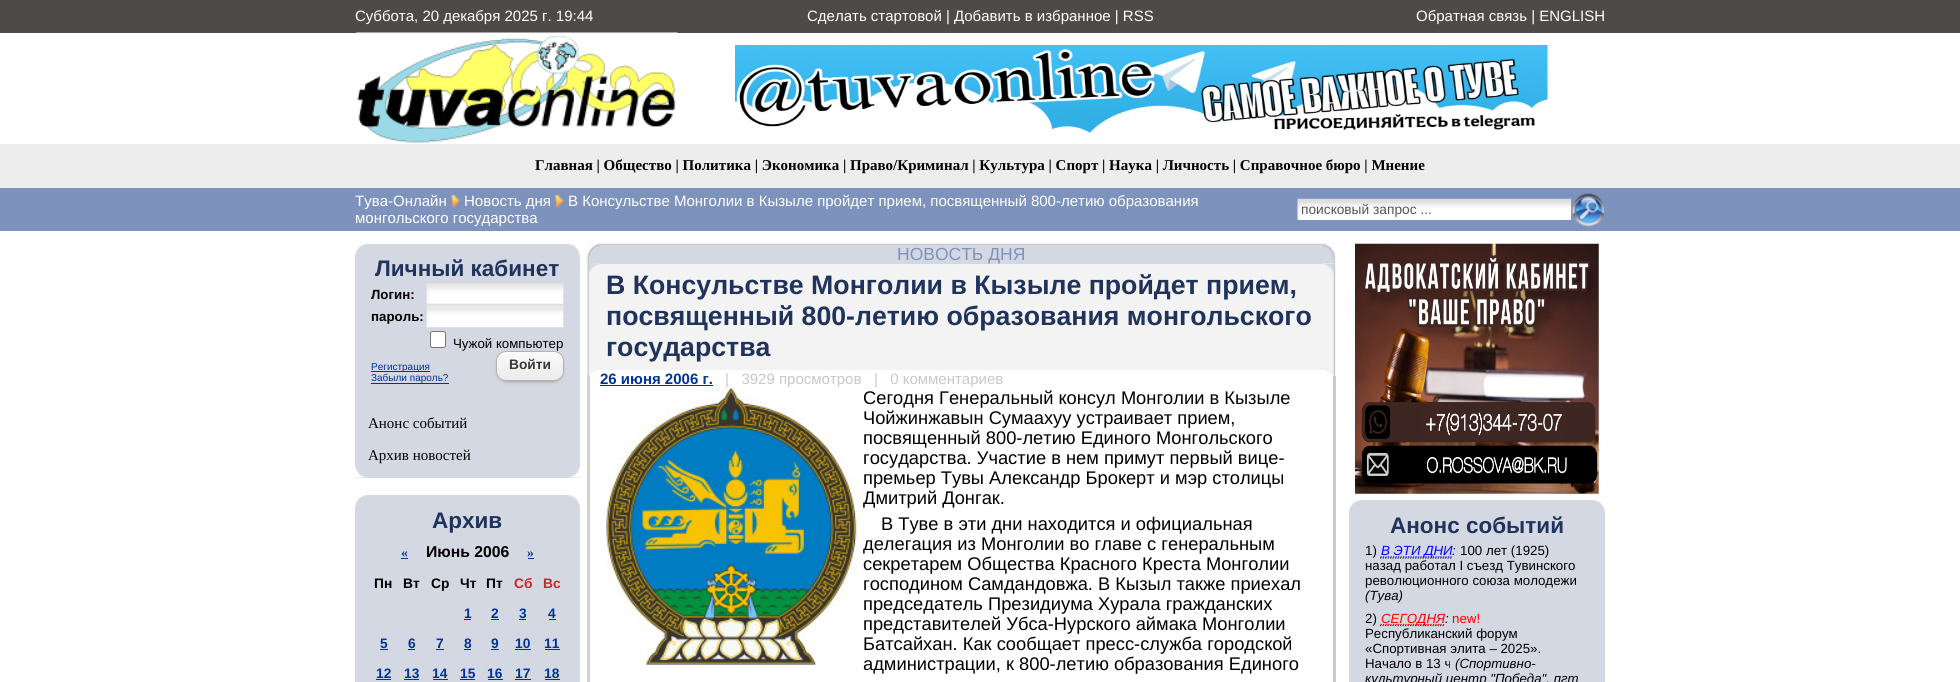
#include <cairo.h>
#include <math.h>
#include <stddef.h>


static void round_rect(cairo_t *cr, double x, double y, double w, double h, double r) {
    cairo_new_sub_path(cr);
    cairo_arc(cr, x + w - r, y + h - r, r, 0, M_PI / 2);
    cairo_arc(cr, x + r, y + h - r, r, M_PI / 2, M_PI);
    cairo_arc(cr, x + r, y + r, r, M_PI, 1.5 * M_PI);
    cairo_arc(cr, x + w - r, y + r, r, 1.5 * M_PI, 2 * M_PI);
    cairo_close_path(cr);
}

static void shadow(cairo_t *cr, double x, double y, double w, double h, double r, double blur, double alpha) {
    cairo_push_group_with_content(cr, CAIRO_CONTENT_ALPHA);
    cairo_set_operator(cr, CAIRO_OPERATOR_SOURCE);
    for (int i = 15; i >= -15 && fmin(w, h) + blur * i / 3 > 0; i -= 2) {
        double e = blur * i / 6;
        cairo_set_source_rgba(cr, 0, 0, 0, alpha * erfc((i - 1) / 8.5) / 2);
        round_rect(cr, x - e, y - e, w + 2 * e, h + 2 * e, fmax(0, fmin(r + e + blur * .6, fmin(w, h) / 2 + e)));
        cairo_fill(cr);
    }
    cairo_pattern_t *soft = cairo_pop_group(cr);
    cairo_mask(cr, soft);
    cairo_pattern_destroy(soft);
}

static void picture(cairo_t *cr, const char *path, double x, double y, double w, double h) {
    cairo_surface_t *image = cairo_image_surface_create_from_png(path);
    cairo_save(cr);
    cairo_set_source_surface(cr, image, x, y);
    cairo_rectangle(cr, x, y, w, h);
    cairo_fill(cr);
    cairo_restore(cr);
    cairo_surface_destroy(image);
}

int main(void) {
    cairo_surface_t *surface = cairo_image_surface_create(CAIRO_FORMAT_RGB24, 1960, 682);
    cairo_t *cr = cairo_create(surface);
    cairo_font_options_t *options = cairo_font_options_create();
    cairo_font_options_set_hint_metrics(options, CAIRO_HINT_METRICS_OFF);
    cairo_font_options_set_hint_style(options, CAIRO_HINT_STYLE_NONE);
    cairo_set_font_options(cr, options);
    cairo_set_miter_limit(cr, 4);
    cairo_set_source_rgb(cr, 1, 1, 1);
    cairo_paint(cr);
    cairo_set_source_rgb(cr, 0.298, 0.294, 0.278);
    cairo_rectangle(cr, 0, 0, 1960, 33);
    cairo_fill(cr);
    cairo_select_font_face(cr, "Liberation Sans", CAIRO_FONT_SLANT_NORMAL, CAIRO_FONT_WEIGHT_NORMAL);
    cairo_set_font_size(cr, 15);
    cairo_set_source_rgb(cr, 1, 1, 1);
    cairo_move_to(cr, 355, 21);
    cairo_show_text(cr, "Суббота, 20 декабря 2025 г. 19:44");
    cairo_move_to(cr, 807, 21);
    cairo_show_text(cr, "Сделать стартовой | Добавить в избранное | RSS");
    cairo_move_to(cr, 1416, 21);
    cairo_show_text(cr, "Обратная связь | ENGLISH");
    picture(cr, "img1.png", 356, 32, 322, 111);
    picture(cr, "img2.png", 735, 45, 813, 88);
    cairo_set_source_rgb(cr, 0.929, 0.929, 0.929);
    cairo_rectangle(cr, 0, 144, 1960, 44);
    cairo_fill(cr);
    cairo_select_font_face(cr, "Liberation Serif", CAIRO_FONT_SLANT_NORMAL, CAIRO_FONT_WEIGHT_BOLD);
    cairo_set_source_rgb(cr, 0, 0, 0);
    cairo_move_to(cr, 535, 170);
    cairo_show_text(cr, "Главная | Общество | Политика | Экономика | Право/Криминал | Культура | Спорт | Наука | Личность | Справочное бюро | Мнение");
    cairo_set_source_rgb(cr, 0.49, 0.573, 0.741);
    cairo_rectangle(cr, 0, 188, 1960, 43);
    cairo_fill(cr);
    cairo_select_font_face(cr, "Liberation Sans", CAIRO_FONT_SLANT_NORMAL, CAIRO_FONT_WEIGHT_NORMAL);
    cairo_set_source_rgb(cr, 1, 1, 1);
    cairo_move_to(cr, 355, 206);
    cairo_show_text(cr, "Тува-Онлайн");
    picture(cr, "img3.png", 451, 195, 9, 13);
    cairo_move_to(cr, 464, 206);
    cairo_show_text(cr, "Новость дня");
    picture(cr, "img4.png", 555, 195, 9, 13);
    cairo_move_to(cr, 568, 206);
    cairo_show_text(cr, "В Консульстве Монголии в Кызыле пройдет прием, посвященный 800-летию образования");
    cairo_move_to(cr, 355, 223);
    cairo_show_text(cr, "монгольского государства");
    picture(cr, "img5.png", 1297, 198, 275, 22);
    cairo_set_font_size(cr, 13.75);
    cairo_set_source_rgb(cr, 0.333, 0.333, 0.333);
    cairo_move_to(cr, 1301, 214);
    cairo_show_text(cr, "поисковый запрос ...");
    picture(cr, "img6.png", 1571, 193, 33, 34);
    cairo_set_source_rgb(cr, 0.831, 0.847, 0.886);
    cairo_rectangle(cr, 355, 244, 225, 234);
    cairo_fill(cr);
    picture(cr, "img7.png", 355, 243, 13, 13);
    picture(cr, "img8.png", 567, 243, 13, 13);
    cairo_select_font_face(cr, "Liberation Sans", CAIRO_FONT_SLANT_NORMAL, CAIRO_FONT_WEIGHT_BOLD);
    cairo_set_font_size(cr, 22.5);
    cairo_set_source_rgb(cr, 0.122, 0.2, 0.361);
    cairo_move_to(cr, 375, 276);
    cairo_show_text(cr, "Личный кабинет");
    cairo_set_font_size(cr, 13.3);
    cairo_set_source_rgb(cr, 0, 0, 0);
    cairo_move_to(cr, 371, 299);
    cairo_show_text(cr, "Логин:");
    picture(cr, "img9.png", 427, 284, 136, 20);
    cairo_rectangle(cr, 426.5, 283.5, 137, 21);
    cairo_set_source_rgb(cr, 0.878, 0.878, 0.878);
    cairo_set_line_width(cr, 1);
    cairo_stroke(cr);
    cairo_set_source_rgb(cr, 0, 0, 0);
    cairo_move_to(cr, 371, 321);
    cairo_show_text(cr, "пароль:");
    cairo_set_source_rgb(cr, 1, 1, 1);
    cairo_rectangle(cr, 427, 306, 136, 21);
    cairo_fill(cr);
    picture(cr, "img10.png", 427, 306, 136, 20);
    cairo_rectangle(cr, 426.5, 305.5, 137, 22);
    cairo_set_source_rgb(cr, 0.878, 0.878, 0.878);
    cairo_stroke(cr);
    cairo_set_source_rgb(cr, 1, 1, 1);
    round_rect(cr, 430.5, 331.5, 15, 16, 2);
    cairo_fill_preserve(cr);
    cairo_set_source_rgb(cr, 0.463, 0.463, 0.463);
    cairo_stroke(cr);
    cairo_select_font_face(cr, "Liberation Sans", CAIRO_FONT_SLANT_NORMAL, CAIRO_FONT_WEIGHT_NORMAL);
    cairo_set_source_rgb(cr, 0, 0, 0);
    cairo_move_to(cr, 453, 348);
    cairo_show_text(cr, "Чужой компьютер");
    cairo_set_source_rgb(cr, 0, 0.2, 0.6);
    cairo_rectangle(cr, 371, 371, 59, 1);
    cairo_fill(cr);
    cairo_set_font_size(cr, 10);
    cairo_move_to(cr, 371, 370);
    cairo_show_text(cr, "Регистрация");
    cairo_rectangle(cr, 371, 383, 78, 1);
    cairo_fill(cr);
    cairo_move_to(cr, 371, 381);
    cairo_show_text(cr, "Забыли пароль?");
    cairo_set_source_rgb(cr, 0, 0, 0);
    shadow(cr, 500, 356, 60, 23, 6, 2.5, 1);
    picture(cr, "img11.png", 496, 352, 68, 28);
    round_rect(cr, 496.5, 351.5, 67, 29, 9.5);
    cairo_set_source_rgb(cr, 0.702, 0.702, 0.702);
    cairo_stroke(cr);
    cairo_select_font_face(cr, "Liberation Sans", CAIRO_FONT_SLANT_NORMAL, CAIRO_FONT_WEIGHT_BOLD);
    cairo_set_font_size(cr, 13.75);
    cairo_set_source_rgb(cr, 0.22, 0.22, 0.22);
    cairo_move_to(cr, 509, 369);
    cairo_show_text(cr, "Войти");
    cairo_select_font_face(cr, "Liberation Serif", CAIRO_FONT_SLANT_NORMAL, CAIRO_FONT_WEIGHT_NORMAL);
    cairo_set_font_size(cr, 15);
    cairo_set_source_rgb(cr, 0, 0, 0);
    cairo_move_to(cr, 368, 428);
    cairo_show_text(cr, "Анонс событий");
    cairo_move_to(cr, 368, 460);
    cairo_show_text(cr, "Архив новостей");
    picture(cr, "img12.png", 355, 466, 11, 12);
    picture(cr, "img13.png", 569, 466, 11, 12);
    cairo_set_source_rgb(cr, 0.831, 0.847, 0.886);
    cairo_rectangle(cr, 355, 495, 225, 187);
    cairo_fill(cr);
    picture(cr, "img14.png", 355, 495, 12, 12);
    picture(cr, "img15.png", 568, 495, 12, 12);
    cairo_select_font_face(cr, "Liberation Sans", CAIRO_FONT_SLANT_NORMAL, CAIRO_FONT_WEIGHT_BOLD);
    cairo_set_font_size(cr, 22.5);
    cairo_set_source_rgb(cr, 0.122, 0.2, 0.361);
    cairo_move_to(cr, 432, 528);
    cairo_show_text(cr, "Архив");
    cairo_select_font_face(cr, "Liberation Serif", CAIRO_FONT_SLANT_NORMAL, CAIRO_FONT_WEIGHT_BOLD);
    cairo_set_font_size(cr, 13.75);
    cairo_set_source_rgb(cr, 0, 0.2, 0.6);
    cairo_move_to(cr, 401, 557);
    cairo_show_text(cr, "«");
    cairo_rectangle(cr, 401, 558, 7, 1);
    cairo_fill(cr);
    cairo_select_font_face(cr, "Liberation Sans", CAIRO_FONT_SLANT_NORMAL, CAIRO_FONT_WEIGHT_BOLD);
    cairo_set_font_size(cr, 15.75);
    cairo_set_source_rgb(cr, 0, 0, 0);
    cairo_move_to(cr, 426, 557);
    cairo_show_text(cr, "Июнь 2006");
    cairo_select_font_face(cr, "Liberation Serif", CAIRO_FONT_SLANT_NORMAL, CAIRO_FONT_WEIGHT_BOLD);
    cairo_set_font_size(cr, 13.75);
    cairo_set_source_rgb(cr, 0, 0.2, 0.6);
    cairo_move_to(cr, 527, 557);
    cairo_show_text(cr, "»");
    cairo_rectangle(cr, 528, 558, 6, 1);
    cairo_fill(cr);
    cairo_select_font_face(cr, "Liberation Sans", CAIRO_FONT_SLANT_NORMAL, CAIRO_FONT_WEIGHT_BOLD);
    cairo_set_source_rgb(cr, 0, 0, 0);
    cairo_move_to(cr, 374, 588);
    cairo_show_text(cr, "Пн");
    cairo_move_to(cr, 403, 588);
    cairo_show_text(cr, "Вт");
    cairo_move_to(cr, 431, 588);
    cairo_show_text(cr, "Ср");
    cairo_move_to(cr, 460, 588);
    cairo_show_text(cr, "Чт");
    cairo_move_to(cr, 486, 588);
    cairo_show_text(cr, "Пт");
    cairo_set_source_rgb(cr, 0.788, 0.153, 0.153);
    cairo_move_to(cr, 514, 588);
    cairo_show_text(cr, "Сб");
    cairo_move_to(cr, 543, 588);
    cairo_show_text(cr, "Вс");
    cairo_set_source_rgb(cr, 0, 0.2, 0.6);
    cairo_move_to(cr, 464, 618);
    cairo_show_text(cr, "1");
    cairo_rectangle(cr, 464, 619, 7, 1);
    cairo_fill(cr);
    cairo_move_to(cr, 491, 618);
    cairo_show_text(cr, "2");
    cairo_rectangle(cr, 491, 619, 8, 1);
    cairo_fill(cr);
    cairo_move_to(cr, 519, 618);
    cairo_show_text(cr, "3");
    cairo_rectangle(cr, 519, 619, 7, 1);
    cairo_fill(cr);
    cairo_move_to(cr, 548, 618);
    cairo_show_text(cr, "4");
    cairo_rectangle(cr, 549, 619, 7, 1);
    cairo_fill(cr);
    cairo_move_to(cr, 380, 648);
    cairo_show_text(cr, "5");
    cairo_rectangle(cr, 380, 649, 8, 1);
    cairo_fill(cr);
    cairo_move_to(cr, 408, 648);
    cairo_show_text(cr, "6");
    cairo_rectangle(cr, 408, 649, 7, 1);
    cairo_fill(cr);
    cairo_move_to(cr, 436, 648);
    cairo_show_text(cr, "7");
    cairo_rectangle(cr, 436, 649, 8, 1);
    cairo_fill(cr);
    cairo_move_to(cr, 464, 648);
    cairo_show_text(cr, "8");
    cairo_rectangle(cr, 464, 649, 7, 1);
    cairo_fill(cr);
    cairo_move_to(cr, 491, 648);
    cairo_show_text(cr, "9");
    cairo_rectangle(cr, 491, 649, 8, 1);
    cairo_fill(cr);
    cairo_move_to(cr, 515, 648);
    cairo_show_text(cr, "10");
    cairo_rectangle(cr, 515, 649, 16, 1);
    cairo_fill(cr);
    cairo_move_to(cr, 544, 648);
    cairo_show_text(cr, "11");
    cairo_rectangle(cr, 545, 649, 15, 1);
    cairo_fill(cr);
    cairo_move_to(cr, 376, 678);
    cairo_show_text(cr, "12");
    cairo_rectangle(cr, 376, 679, 15, 1);
    cairo_fill(cr);
    cairo_move_to(cr, 404, 678);
    cairo_show_text(cr, "13");
    cairo_rectangle(cr, 404, 679, 15, 1);
    cairo_fill(cr);
    cairo_move_to(cr, 432, 678);
    cairo_show_text(cr, "14");
    cairo_rectangle(cr, 433, 679, 15, 1);
    cairo_fill(cr);
    cairo_move_to(cr, 460, 678);
    cairo_show_text(cr, "15");
    cairo_rectangle(cr, 460, 679, 15, 1);
    cairo_fill(cr);
    cairo_move_to(cr, 487, 678);
    cairo_show_text(cr, "16");
    cairo_rectangle(cr, 488, 679, 15, 1);
    cairo_fill(cr);
    cairo_move_to(cr, 515, 678);
    cairo_show_text(cr, "17");
    cairo_rectangle(cr, 515, 679, 16, 1);
    cairo_fill(cr);
    cairo_move_to(cr, 544, 678);
    cairo_show_text(cr, "18");
    cairo_rectangle(cr, 545, 679, 15, 1);
    cairo_fill(cr);
    cairo_set_source_rgb(cr, 0.831, 0.847, 0.886);
    cairo_rectangle(cr, 586, 244, 737, 20);
    cairo_fill(cr);
    picture(cr, "img16.png", 586, 243, 14, 21);
    picture(cr, "img17.png", 586, 243, 14, 14);
    picture(cr, "img20.png", 600, 243, 723, 2);
    picture(cr, "img18.png", 1322, 243, 14, 21);
    picture(cr, "img19.png", 1322, 243, 14, 14);
    cairo_select_font_face(cr, "Liberation Sans", CAIRO_FONT_SLANT_NORMAL, CAIRO_FONT_WEIGHT_NORMAL);
    cairo_set_font_size(cr, 17.5);
    cairo_set_source_rgb(cr, 0.49, 0.573, 0.741);
    cairo_move_to(cr, 897, 260);
    cairo_show_text(cr, "НОВОСТЬ ДНЯ");
    picture(cr, "img21.png", 586, 263, 14, 107);
    picture(cr, "img22.png", 588, 263, 12, 11);
    cairo_set_source_rgb(cr, 0.953, 0.953, 0.953);
    cairo_rectangle(cr, 600, 264, 723, 106);
    cairo_fill(cr);
    cairo_select_font_face(cr, "Liberation Sans", CAIRO_FONT_SLANT_NORMAL, CAIRO_FONT_WEIGHT_BOLD);
    cairo_set_font_size(cr, 26.7);
    cairo_set_source_rgb(cr, 0.122, 0.2, 0.361);
    cairo_move_to(cr, 606, 294);
    cairo_show_text(cr, "В Консульстве Монголии в Кызыле пройдет прием,");
    cairo_move_to(cr, 606, 325);
    cairo_show_text(cr, "посвященный 800-летию образования монгольского");
    cairo_move_to(cr, 606, 356);
    cairo_show_text(cr, "государства");
    cairo_set_source_rgb(cr, 0.953, 0.953, 0.953);
    cairo_rectangle(cr, 1335, 264, 1, 106);
    cairo_fill(cr);
    picture(cr, "img23.png", 1322, 263, 13, 107);
    picture(cr, "img24.png", 1323, 264, 11, 10);
    cairo_set_source_rgb(cr, 0.824, 0.824, 0.824);
    cairo_rectangle(cr, 587, 370, 3, 312);
    cairo_fill(cr);
    picture(cr, "img25.png", 587, 370, 11, 7);
    cairo_set_font_size(cr, 15);
    cairo_set_source_rgb(cr, 0, 0.2, 0.6);
    cairo_move_to(cr, 600, 384);
    cairo_show_text(cr, "26 июня 2006 г.");
    cairo_rectangle(cr, 600, 385, 113, 1);
    cairo_fill(cr);
    picture(cr, "img27.png", 606, 387, 251, 278);
    cairo_select_font_face(cr, "Liberation Sans", CAIRO_FONT_SLANT_NORMAL, CAIRO_FONT_WEIGHT_NORMAL);
    cairo_set_source_rgb(cr, 0.784, 0.784, 0.784);
    cairo_move_to(cr, 725, 384);
    cairo_show_text(cr, "|   3929 просмотров   |   0 комментариев");
    cairo_set_source_rgb(cr, 0.788, 0.788, 0.788);
    cairo_rectangle(cr, 1333, 370, 3, 312);
    cairo_fill(cr);
    picture(cr, "img26.png", 1325, 370, 11, 7);
    cairo_set_font_size(cr, 18.3);
    cairo_set_source_rgb(cr, 0, 0, 0);
    cairo_move_to(cr, 863, 404);
    cairo_show_text(cr, "Сегодня Генеральный консул Монголии в Кызыле");
    cairo_move_to(cr, 863, 424);
    cairo_show_text(cr, "Чойжинжавын Сумаахуу устраивает прием,");
    cairo_move_to(cr, 863, 444);
    cairo_show_text(cr, "посвященный 800-летию Единого Монгольского");
    cairo_move_to(cr, 863, 464);
    cairo_show_text(cr, "государства. Участие в нем примут первый вице-");
    cairo_move_to(cr, 863, 484);
    cairo_show_text(cr, "премьер Тувы Александр Брокерт и мэр столицы");
    cairo_move_to(cr, 863, 504);
    cairo_show_text(cr, "Дмитрий Донгак.");
    cairo_move_to(cr, 881, 530);
    cairo_show_text(cr, "В Туве в эти дни находится и официальная");
    cairo_move_to(cr, 863, 550);
    cairo_show_text(cr, "делегация из Монголии во главе с генеральным");
    cairo_move_to(cr, 863, 570);
    cairo_show_text(cr, "секретарем Общества Красного Креста Монголии");
    cairo_move_to(cr, 863, 590);
    cairo_show_text(cr, "господином Самдандовжа. В Кызыл также приехал");
    cairo_move_to(cr, 863, 610);
    cairo_show_text(cr, "председатель Президиума Хурала гражданских");
    cairo_move_to(cr, 863, 630);
    cairo_show_text(cr, "представителей Убса-Нурского аймака Монголии");
    cairo_move_to(cr, 863, 650);
    cairo_show_text(cr, "Батсайхан. Как сообщает пресс-служба городской");
    cairo_move_to(cr, 863, 670);
    cairo_show_text(cr, "администрации, к 800-летию образования Единого");
    picture(cr, "img28.png", 1355, 243, 244, 251);
    cairo_set_source_rgb(cr, 0.831, 0.847, 0.886);
    cairo_rectangle(cr, 1349, 500, 256, 182);
    cairo_fill(cr);
    picture(cr, "img29.png", 1348, 500, 13, 13);
    picture(cr, "img30.png", 1593, 500, 12, 12);
    cairo_select_font_face(cr, "Liberation Sans", CAIRO_FONT_SLANT_NORMAL, CAIRO_FONT_WEIGHT_BOLD);
    cairo_set_font_size(cr, 22.5);
    cairo_set_source_rgb(cr, 0.122, 0.2, 0.361);
    cairo_move_to(cr, 1390, 533);
    cairo_show_text(cr, "Анонс событий");
    cairo_select_font_face(cr, "Liberation Sans", CAIRO_FONT_SLANT_NORMAL, CAIRO_FONT_WEIGHT_NORMAL);
    cairo_set_font_size(cr, 13.3);
    cairo_set_source_rgb(cr, 0, 0, 0);
    cairo_move_to(cr, 1365, 555);
    cairo_show_text(cr, "1)");
    cairo_new_path(cr);
    cairo_move_to(cr, 1380, 558);
    cairo_line_to(cr, 1452.5, 558);
    cairo_set_source_rgb(cr, 0.2, 0.2, 0.2);
    cairo_set_line_width(cr, 1.2);
    cairo_set_dash(cr, (double[]){1.25, 1.25}, 2, 0);
    cairo_stroke(cr);
    cairo_new_path(cr);
    cairo_move_to(cr, 1380.5, 557);
    cairo_line_to(cr, 1452.5, 557);
    cairo_set_source_rgb(cr, 0, 0, 1);
    cairo_stroke(cr);
    cairo_select_font_face(cr, "Liberation Sans", CAIRO_FONT_SLANT_ITALIC, CAIRO_FONT_WEIGHT_NORMAL);
    cairo_move_to(cr, 1381, 555);
    cairo_show_text(cr, "В ЭТИ ДНИ");
    cairo_set_source_rgb(cr, 0, 0, 0);
    cairo_move_to(cr, 1452, 555);
    cairo_show_text(cr, ":");
    cairo_select_font_face(cr, "Liberation Sans", CAIRO_FONT_SLANT_NORMAL, CAIRO_FONT_WEIGHT_NORMAL);
    cairo_move_to(cr, 1460, 555);
    cairo_show_text(cr, "100 лет (1925)");
    cairo_move_to(cr, 1365, 570);
    cairo_show_text(cr, "назад работал I съезд Тувинского");
    cairo_move_to(cr, 1365, 585);
    cairo_show_text(cr, "революционного союза молодежи");
    cairo_select_font_face(cr, "Liberation Sans", CAIRO_FONT_SLANT_ITALIC, CAIRO_FONT_WEIGHT_NORMAL);
    cairo_move_to(cr, 1365, 600);
    cairo_show_text(cr, "(Тува)");
    cairo_select_font_face(cr, "Liberation Sans", CAIRO_FONT_SLANT_NORMAL, CAIRO_FONT_WEIGHT_NORMAL);
    cairo_move_to(cr, 1365, 623);
    cairo_show_text(cr, "2)");
    cairo_new_path(cr);
    cairo_move_to(cr, 1380, 625.5);
    cairo_line_to(cr, 1445, 625.5);
    cairo_set_source_rgb(cr, 0.2, 0.2, 0.2);
    cairo_stroke(cr);
    cairo_new_path(cr);
    cairo_move_to(cr, 1380.5, 624.5);
    cairo_line_to(cr, 1444.5, 624.5);
    cairo_set_source_rgb(cr, 1, 0, 0);
    cairo_stroke(cr);
    cairo_select_font_face(cr, "Liberation Sans", CAIRO_FONT_SLANT_ITALIC, CAIRO_FONT_WEIGHT_NORMAL);
    cairo_move_to(cr, 1381, 623);
    cairo_show_text(cr, "СЕГОДНЯ");
    cairo_set_source_rgb(cr, 0, 0, 0);
    cairo_move_to(cr, 1445, 623);
    cairo_show_text(cr, ":");
    cairo_select_font_face(cr, "Liberation Sans", CAIRO_FONT_SLANT_NORMAL, CAIRO_FONT_WEIGHT_NORMAL);
    cairo_set_source_rgb(cr, 1, 0, 0);
    cairo_move_to(cr, 1452, 623);
    cairo_show_text(cr, "new!");
    cairo_set_source_rgb(cr, 0, 0, 0);
    cairo_move_to(cr, 1365, 638);
    cairo_show_text(cr, "Республиканский форум");
    cairo_move_to(cr, 1365, 653);
    cairo_show_text(cr, "«Спортивная элита – 2025».");
    cairo_move_to(cr, 1365, 668);
    cairo_show_text(cr, "Начало в 13 ч");
    cairo_select_font_face(cr, "Liberation Sans", CAIRO_FONT_SLANT_ITALIC, CAIRO_FONT_WEIGHT_NORMAL);
    cairo_move_to(cr, 1455, 668);
    cairo_show_text(cr, "(Спортивно-");
    cairo_move_to(cr, 1365, 683);
    cairo_show_text(cr, "культурный центр \"Победа\", пгт");
    cairo_surface_write_to_png(surface, "page.png");
    cairo_font_options_destroy(options);
    cairo_destroy(cr);
    cairo_surface_destroy(surface);
    return 0;
}
